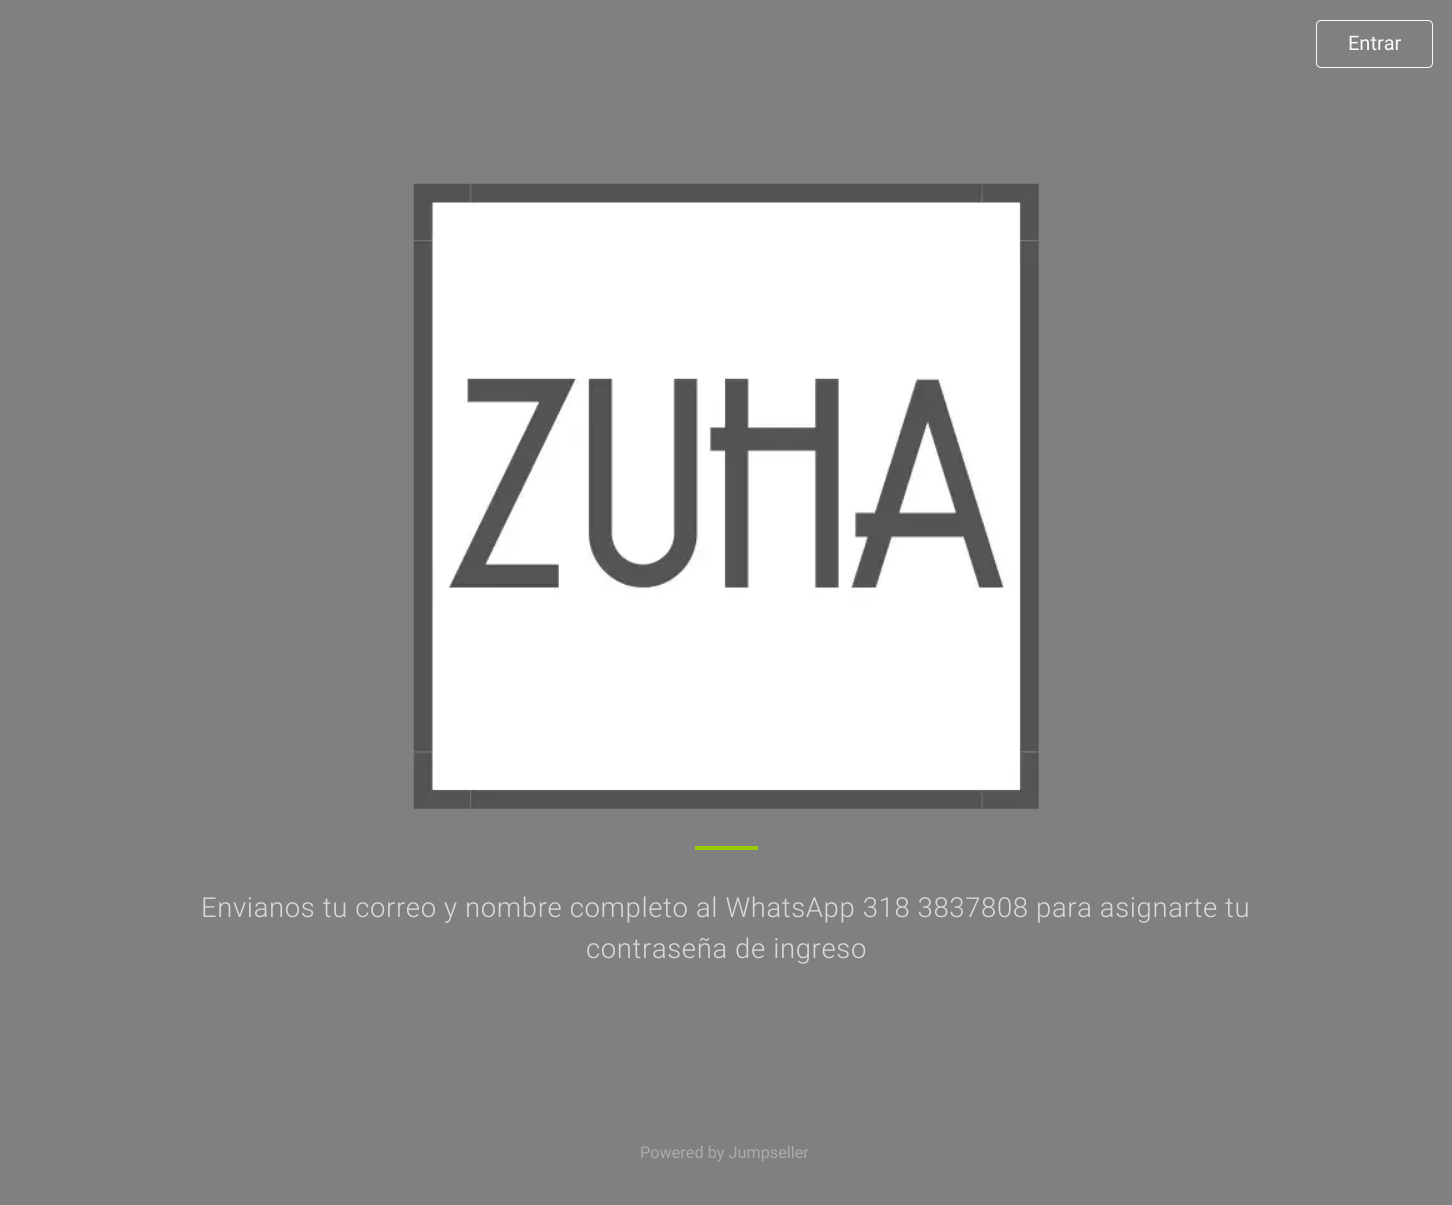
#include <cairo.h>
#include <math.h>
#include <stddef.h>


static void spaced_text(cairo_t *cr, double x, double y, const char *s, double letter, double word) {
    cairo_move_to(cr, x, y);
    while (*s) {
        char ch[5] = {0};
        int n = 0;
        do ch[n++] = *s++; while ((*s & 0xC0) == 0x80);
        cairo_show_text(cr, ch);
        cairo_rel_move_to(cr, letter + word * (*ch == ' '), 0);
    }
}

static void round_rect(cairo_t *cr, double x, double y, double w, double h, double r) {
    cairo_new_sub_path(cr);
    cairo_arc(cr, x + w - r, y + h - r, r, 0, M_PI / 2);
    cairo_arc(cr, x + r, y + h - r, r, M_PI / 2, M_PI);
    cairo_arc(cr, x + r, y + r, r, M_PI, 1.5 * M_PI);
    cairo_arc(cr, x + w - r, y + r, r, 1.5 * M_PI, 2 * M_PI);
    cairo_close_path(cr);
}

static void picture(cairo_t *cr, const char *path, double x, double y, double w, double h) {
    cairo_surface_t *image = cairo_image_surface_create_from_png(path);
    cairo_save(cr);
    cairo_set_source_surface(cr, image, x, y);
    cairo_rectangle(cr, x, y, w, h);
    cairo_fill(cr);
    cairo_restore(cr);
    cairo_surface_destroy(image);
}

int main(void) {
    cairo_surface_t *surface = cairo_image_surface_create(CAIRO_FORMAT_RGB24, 1452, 1205);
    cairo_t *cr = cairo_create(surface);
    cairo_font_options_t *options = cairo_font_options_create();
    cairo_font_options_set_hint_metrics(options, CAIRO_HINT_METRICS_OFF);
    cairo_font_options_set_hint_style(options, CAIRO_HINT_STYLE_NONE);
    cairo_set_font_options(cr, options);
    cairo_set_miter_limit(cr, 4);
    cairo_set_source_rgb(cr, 0.502, 0.502, 0.502);
    cairo_paint(cr);
    round_rect(cr, 1316.5, 20.5, 116, 47, 4.5);
    cairo_set_source_rgb(cr, 0.973, 0.976, 0.98);
    cairo_set_line_width(cr, 1);
    cairo_stroke(cr);
    cairo_select_font_face(cr, "Roboto", CAIRO_FONT_SLANT_NORMAL, CAIRO_FONT_WEIGHT_NORMAL);
    cairo_set_font_size(cr, 20);
    cairo_move_to(cr, 1348, 50);
    cairo_show_text(cr, "Entrar");
    picture(cr, "img1.png", 413, 183, 626, 626);
    cairo_set_source_rgb(cr, 0.6, 0.8, 0);
    cairo_rectangle(cr, 695, 846, 63, 4);
    cairo_fill(cr);
    cairo_select_font_face(cr, "Roboto Light", CAIRO_FONT_SLANT_NORMAL, CAIRO_FONT_WEIGHT_NORMAL);
    cairo_set_font_size(cr, 27.5);
    cairo_set_source_rgb(cr, 0.851, 0.851, 0.851);
    spaced_text(cr, 201, 917, "Envianos tu correo y nombre completo al WhatsApp 318 3837808 para asignarte tu", 0.62, 0);
    spaced_text(cr, 586, 958, "contraseña de ingreso", 0.62, 0);
    cairo_select_font_face(cr, "Roboto", CAIRO_FONT_SLANT_NORMAL, CAIRO_FONT_WEIGHT_NORMAL);
    cairo_set_font_size(cr, 16.25);
    cairo_set_source_rgb(cr, 0.667, 0.667, 0.667);
    cairo_move_to(cr, 640, 1158);
    cairo_show_text(cr, "Powered by Jumpseller");
    cairo_surface_write_to_png(surface, "page.png");
    cairo_font_options_destroy(options);
    cairo_destroy(cr);
    cairo_surface_destroy(surface);
    return 0;
}
